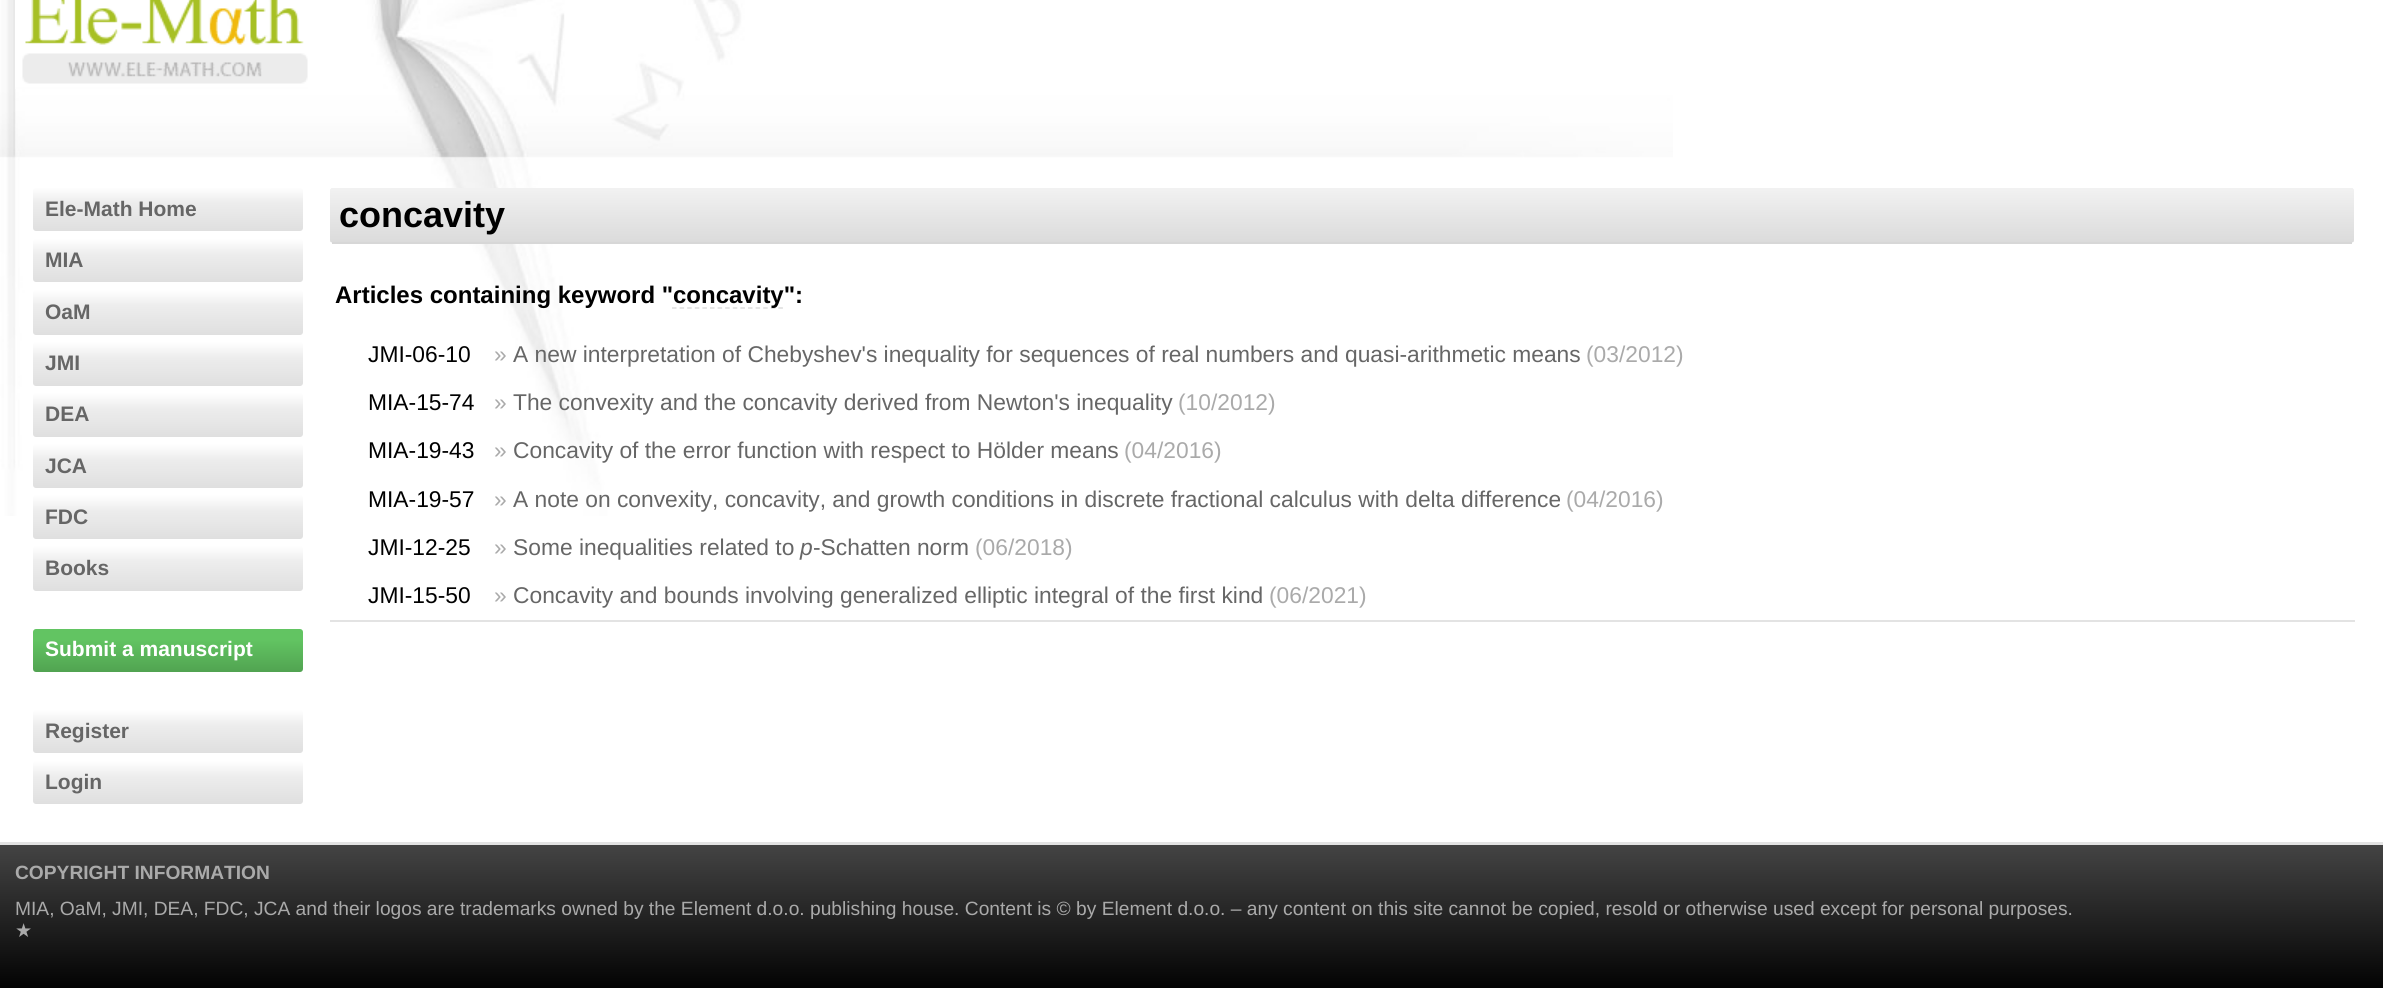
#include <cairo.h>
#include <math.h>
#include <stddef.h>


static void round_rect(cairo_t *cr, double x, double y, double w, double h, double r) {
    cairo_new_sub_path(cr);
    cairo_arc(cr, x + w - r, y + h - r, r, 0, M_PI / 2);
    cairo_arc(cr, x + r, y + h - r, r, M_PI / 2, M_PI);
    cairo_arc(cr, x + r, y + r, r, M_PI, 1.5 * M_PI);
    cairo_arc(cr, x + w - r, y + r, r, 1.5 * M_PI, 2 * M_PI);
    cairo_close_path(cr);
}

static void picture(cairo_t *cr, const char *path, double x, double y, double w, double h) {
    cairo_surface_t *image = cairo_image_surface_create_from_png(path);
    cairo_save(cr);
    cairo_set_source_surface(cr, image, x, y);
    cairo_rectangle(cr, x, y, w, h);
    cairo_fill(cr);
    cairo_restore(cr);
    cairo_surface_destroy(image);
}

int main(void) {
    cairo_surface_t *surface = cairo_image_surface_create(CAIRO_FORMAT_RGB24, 2383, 988);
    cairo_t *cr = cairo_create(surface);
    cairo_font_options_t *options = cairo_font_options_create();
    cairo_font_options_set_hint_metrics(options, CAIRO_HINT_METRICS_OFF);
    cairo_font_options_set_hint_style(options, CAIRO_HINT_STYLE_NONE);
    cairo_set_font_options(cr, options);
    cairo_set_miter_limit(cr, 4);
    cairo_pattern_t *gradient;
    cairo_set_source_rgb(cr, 1, 1, 1);
    cairo_paint(cr);
    picture(cr, "img1.png", 0, 0, 1673, 516);
    picture(cr, "img2.png", 15, 0, 293, 89);
    gradient = cairo_pattern_create_linear(168, 187, 168, 231);
    cairo_pattern_add_color_stop_rgba(gradient, 0, 1, 1, 1, 1);
    cairo_pattern_add_color_stop_rgba(gradient, 0.35, 0.929, 0.929, 0.929, 1);
    cairo_pattern_add_color_stop_rgba(gradient, 1, 0.875, 0.875, 0.875, 1);
    cairo_set_source(cr, gradient);
    cairo_pattern_destroy(gradient);
    round_rect(cr, 33, 188, 270, 43, 3);
    cairo_fill(cr);
    cairo_select_font_face(cr, "Liberation Sans", CAIRO_FONT_SLANT_NORMAL, CAIRO_FONT_WEIGHT_BOLD);
    cairo_set_font_size(cr, 21);
    cairo_set_source_rgb(cr, 0.4, 0.4, 0.4);
    cairo_move_to(cr, 45, 216);
    cairo_show_text(cr, "Ele-Math Home");
    gradient = cairo_pattern_create_linear(168, 239, 168, 282);
    cairo_pattern_add_color_stop_rgba(gradient, 0, 1, 1, 1, 1);
    cairo_pattern_add_color_stop_rgba(gradient, 0.35, 0.929, 0.929, 0.929, 1);
    cairo_pattern_add_color_stop_rgba(gradient, 1, 0.875, 0.875, 0.875, 1);
    cairo_set_source(cr, gradient);
    cairo_pattern_destroy(gradient);
    round_rect(cr, 33, 239, 270, 43, 3);
    cairo_fill(cr);
    cairo_set_source_rgb(cr, 0.4, 0.4, 0.4);
    cairo_move_to(cr, 45, 267);
    cairo_show_text(cr, "MIA");
    gradient = cairo_pattern_create_linear(168, 290, 168, 335);
    cairo_pattern_add_color_stop_rgba(gradient, 0, 1, 1, 1, 1);
    cairo_pattern_add_color_stop_rgba(gradient, 0.35, 0.929, 0.929, 0.929, 1);
    cairo_pattern_add_color_stop_rgba(gradient, 1, 0.875, 0.875, 0.875, 1);
    cairo_set_source(cr, gradient);
    cairo_pattern_destroy(gradient);
    round_rect(cr, 33, 290, 270, 45, 3);
    cairo_fill(cr);
    cairo_set_source_rgb(cr, 0.4, 0.4, 0.4);
    cairo_move_to(cr, 45, 319);
    cairo_show_text(cr, "OaM");
    gradient = cairo_pattern_create_linear(168, 342, 168, 386);
    cairo_pattern_add_color_stop_rgba(gradient, 0, 1, 1, 1, 1);
    cairo_pattern_add_color_stop_rgba(gradient, 0.35, 0.929, 0.929, 0.929, 1);
    cairo_pattern_add_color_stop_rgba(gradient, 1, 0.875, 0.875, 0.875, 1);
    cairo_set_source(cr, gradient);
    cairo_pattern_destroy(gradient);
    round_rect(cr, 33, 342, 270, 44, 3);
    cairo_fill(cr);
    cairo_set_source_rgb(cr, 0.4, 0.4, 0.4);
    cairo_move_to(cr, 45, 370);
    cairo_show_text(cr, "JMI");
    gradient = cairo_pattern_create_linear(168, 393, 168, 437);
    cairo_pattern_add_color_stop_rgba(gradient, 0, 1, 1, 1, 1);
    cairo_pattern_add_color_stop_rgba(gradient, 0.35, 0.929, 0.929, 0.929, 1);
    cairo_pattern_add_color_stop_rgba(gradient, 1, 0.875, 0.875, 0.875, 1);
    cairo_set_source(cr, gradient);
    cairo_pattern_destroy(gradient);
    round_rect(cr, 33, 393, 270, 44, 3);
    cairo_fill(cr);
    cairo_set_source_rgb(cr, 0.4, 0.4, 0.4);
    cairo_move_to(cr, 45, 421);
    cairo_show_text(cr, "DEA");
    gradient = cairo_pattern_create_linear(168, 444, 168, 488);
    cairo_pattern_add_color_stop_rgba(gradient, 0, 1, 1, 1, 1);
    cairo_pattern_add_color_stop_rgba(gradient, 0.35, 0.929, 0.929, 0.929, 1);
    cairo_pattern_add_color_stop_rgba(gradient, 1, 0.875, 0.875, 0.875, 1);
    cairo_set_source(cr, gradient);
    cairo_pattern_destroy(gradient);
    round_rect(cr, 33, 444, 270, 44, 3);
    cairo_fill(cr);
    cairo_set_source_rgb(cr, 0.4, 0.4, 0.4);
    cairo_move_to(cr, 45, 473);
    cairo_show_text(cr, "JCA");
    gradient = cairo_pattern_create_linear(168, 495, 168, 539);
    cairo_pattern_add_color_stop_rgba(gradient, 0, 1, 1, 1, 1);
    cairo_pattern_add_color_stop_rgba(gradient, 0.35, 0.929, 0.929, 0.929, 1);
    cairo_pattern_add_color_stop_rgba(gradient, 1, 0.875, 0.875, 0.875, 1);
    cairo_set_source(cr, gradient);
    cairo_pattern_destroy(gradient);
    round_rect(cr, 33, 495, 270, 44, 3);
    cairo_fill(cr);
    cairo_set_source_rgb(cr, 0.4, 0.4, 0.4);
    cairo_move_to(cr, 45, 524);
    cairo_show_text(cr, "FDC");
    gradient = cairo_pattern_create_linear(168, 546, 168, 591);
    cairo_pattern_add_color_stop_rgba(gradient, 0, 1, 1, 1, 1);
    cairo_pattern_add_color_stop_rgba(gradient, 0.35, 0.929, 0.929, 0.929, 1);
    cairo_pattern_add_color_stop_rgba(gradient, 1, 0.875, 0.875, 0.875, 1);
    cairo_set_source(cr, gradient);
    cairo_pattern_destroy(gradient);
    round_rect(cr, 33, 546, 270, 45, 3);
    cairo_fill(cr);
    cairo_set_source_rgb(cr, 0.4, 0.4, 0.4);
    cairo_move_to(cr, 45, 575);
    cairo_show_text(cr, "Books");
    gradient = cairo_pattern_create_linear(168, 629, 168, 672);
    cairo_pattern_add_color_stop_rgba(gradient, 0, 0.384, 0.769, 0.384, 1);
    cairo_pattern_add_color_stop_rgba(gradient, 0.25, 0.384, 0.769, 0.384, 1);
    cairo_pattern_add_color_stop_rgba(gradient, 1, 0.318, 0.639, 0.318, 1);
    cairo_set_source(cr, gradient);
    cairo_pattern_destroy(gradient);
    round_rect(cr, 33, 629, 270, 43, 3);
    cairo_fill(cr);
    cairo_set_source_rgb(cr, 1, 1, 1);
    cairo_move_to(cr, 45, 656);
    cairo_show_text(cr, "Submit a manuscript");
    gradient = cairo_pattern_create_linear(168, 710, 168, 753);
    cairo_pattern_add_color_stop_rgba(gradient, 0, 1, 1, 1, 1);
    cairo_pattern_add_color_stop_rgba(gradient, 0.35, 0.929, 0.929, 0.929, 1);
    cairo_pattern_add_color_stop_rgba(gradient, 1, 0.875, 0.875, 0.875, 1);
    cairo_set_source(cr, gradient);
    cairo_pattern_destroy(gradient);
    round_rect(cr, 33, 710, 270, 43, 3);
    cairo_fill(cr);
    cairo_set_source_rgb(cr, 0.4, 0.4, 0.4);
    cairo_move_to(cr, 45, 738);
    cairo_show_text(cr, "Register");
    gradient = cairo_pattern_create_linear(168, 761, 168, 804);
    cairo_pattern_add_color_stop_rgba(gradient, 0, 1, 1, 1, 1);
    cairo_pattern_add_color_stop_rgba(gradient, 0.35, 0.929, 0.929, 0.929, 1);
    cairo_pattern_add_color_stop_rgba(gradient, 1, 0.875, 0.875, 0.875, 1);
    cairo_set_source(cr, gradient);
    cairo_pattern_destroy(gradient);
    round_rect(cr, 33, 761, 270, 43, 3);
    cairo_fill(cr);
    cairo_set_source_rgb(cr, 0.4, 0.4, 0.4);
    cairo_move_to(cr, 45, 789);
    cairo_show_text(cr, "Login");
    cairo_set_source_rgb(cr, 0.914, 0.914, 0.914);
    round_rect(cr, 330, 188, 2024, 55, 3);
    cairo_fill(cr);
    cairo_save(cr);
    round_rect(cr, 330, 188, 2024, 55, 3);
    cairo_clip(cr);
    gradient = cairo_pattern_create_linear(1342, 187, 1342, 242);
    cairo_pattern_add_color_stop_rgba(gradient, 0, 0.949, 0.949, 0.949, 1);
    cairo_pattern_add_color_stop_rgba(gradient, 1, 0.859, 0.859, 0.859, 1);
    cairo_set_source(cr, gradient);
    cairo_pattern_destroy(gradient);
    cairo_new_path(cr);
    cairo_move_to(cr, 333, 188);
    cairo_line_to(cr, 2351, 188);
    cairo_curve_to(cr, 2352.5, 188, 2354, 189.5, 2354, 191);
    cairo_line_to(cr, 2354, 242);
    cairo_line_to(cr, 330, 242);
    cairo_line_to(cr, 330, 191);
    cairo_curve_to(cr, 330, 189.5, 331.5, 188, 333, 188);
    cairo_close_path(cr);
    cairo_fill(cr);
    cairo_restore(cr);
    cairo_set_source_rgb(cr, 0.843, 0.843, 0.843);
    cairo_rectangle(cr, 332, 242, 2020, 2);
    cairo_fill(cr);
    cairo_set_font_size(cr, 36);
    cairo_set_source_rgb(cr, 0, 0, 0);
    cairo_move_to(cr, 339, 227);
    cairo_show_text(cr, "concavity");
    cairo_set_font_size(cr, 24);
    cairo_move_to(cr, 335, 303);
    cairo_show_text(cr, "Articles containing keyword \"");
    cairo_new_path(cr);
    cairo_move_to(cr, 672, 308);
    cairo_line_to(cr, 783, 308);
    cairo_set_source_rgb(cr, 0.863, 0.863, 0.863);
    cairo_set_line_width(cr, 1.5);
    cairo_set_dash(cr, (double[]){4.5, 3.1}, 2, 0);
    cairo_stroke(cr);
    cairo_set_source_rgb(cr, 0, 0, 0);
    cairo_move_to(cr, 673, 303);
    cairo_show_text(cr, "concavity\":");
    cairo_select_font_face(cr, "Liberation Sans", CAIRO_FONT_SLANT_NORMAL, CAIRO_FONT_WEIGHT_NORMAL);
    cairo_set_font_size(cr, 22.8);
    cairo_move_to(cr, 368, 362);
    cairo_show_text(cr, "JMI-06-10");
    cairo_set_source_rgb(cr, 0.667, 0.667, 0.667);
    cairo_move_to(cr, 494, 362);
    cairo_show_text(cr, "»");
    cairo_set_source_rgb(cr, 0.4, 0.4, 0.4);
    cairo_move_to(cr, 513, 362);
    cairo_show_text(cr, "A new interpretation of Chebyshev's inequality for sequences of real numbers and quasi-arithmetic means");
    cairo_set_source_rgb(cr, 0.667, 0.667, 0.667);
    cairo_move_to(cr, 1586, 362);
    cairo_show_text(cr, "(03/2012)");
    cairo_set_source_rgb(cr, 0, 0, 0);
    cairo_move_to(cr, 368, 410);
    cairo_show_text(cr, "MIA-15-74");
    cairo_set_source_rgb(cr, 0.667, 0.667, 0.667);
    cairo_move_to(cr, 494, 410);
    cairo_show_text(cr, "»");
    cairo_set_source_rgb(cr, 0.4, 0.4, 0.4);
    cairo_move_to(cr, 513, 410);
    cairo_show_text(cr, "The convexity and the concavity derived from Newton's inequality");
    cairo_set_source_rgb(cr, 0.667, 0.667, 0.667);
    cairo_move_to(cr, 1178, 410);
    cairo_show_text(cr, "(10/2012)");
    cairo_set_source_rgb(cr, 0, 0, 0);
    cairo_move_to(cr, 368, 458);
    cairo_show_text(cr, "MIA-19-43");
    cairo_set_source_rgb(cr, 0.667, 0.667, 0.667);
    cairo_move_to(cr, 494, 458);
    cairo_show_text(cr, "»");
    cairo_set_source_rgb(cr, 0.4, 0.4, 0.4);
    cairo_move_to(cr, 513, 458);
    cairo_show_text(cr, "Concavity of the error function with respect to Hölder means");
    cairo_set_source_rgb(cr, 0.667, 0.667, 0.667);
    cairo_move_to(cr, 1124, 458);
    cairo_show_text(cr, "(04/2016)");
    cairo_set_source_rgb(cr, 0, 0, 0);
    cairo_move_to(cr, 368, 507);
    cairo_show_text(cr, "MIA-19-57");
    cairo_set_source_rgb(cr, 0.667, 0.667, 0.667);
    cairo_move_to(cr, 494, 507);
    cairo_show_text(cr, "»");
    cairo_set_source_rgb(cr, 0.4, 0.4, 0.4);
    cairo_move_to(cr, 513, 507);
    cairo_show_text(cr, "A note on convexity, concavity, and growth conditions in discrete fractional calculus with delta difference");
    cairo_set_source_rgb(cr, 0.667, 0.667, 0.667);
    cairo_move_to(cr, 1566, 507);
    cairo_show_text(cr, "(04/2016)");
    cairo_set_source_rgb(cr, 0, 0, 0);
    cairo_move_to(cr, 368, 555);
    cairo_show_text(cr, "JMI-12-25");
    cairo_set_source_rgb(cr, 0.667, 0.667, 0.667);
    cairo_move_to(cr, 494, 555);
    cairo_show_text(cr, "»");
    cairo_set_source_rgb(cr, 0.4, 0.4, 0.4);
    cairo_move_to(cr, 513, 555);
    cairo_show_text(cr, "Some inequalities related to");
    cairo_select_font_face(cr, "Liberation Sans", CAIRO_FONT_SLANT_ITALIC, CAIRO_FONT_WEIGHT_NORMAL);
    cairo_move_to(cr, 800, 555);
    cairo_show_text(cr, "p");
    cairo_select_font_face(cr, "Liberation Sans", CAIRO_FONT_SLANT_NORMAL, CAIRO_FONT_WEIGHT_NORMAL);
    cairo_move_to(cr, 813, 555);
    cairo_show_text(cr, "-Schatten norm");
    cairo_set_source_rgb(cr, 0.667, 0.667, 0.667);
    cairo_move_to(cr, 975, 555);
    cairo_show_text(cr, "(06/2018)");
    cairo_set_source_rgb(cr, 0, 0, 0);
    cairo_move_to(cr, 368, 603);
    cairo_show_text(cr, "JMI-15-50");
    cairo_set_source_rgb(cr, 0.89, 0.89, 0.89);
    cairo_rectangle(cr, 330, 620, 2025, 2);
    cairo_fill(cr);
    cairo_set_source_rgb(cr, 0.667, 0.667, 0.667);
    cairo_move_to(cr, 494, 603);
    cairo_show_text(cr, "»");
    cairo_set_source_rgb(cr, 0.4, 0.4, 0.4);
    cairo_move_to(cr, 513, 603);
    cairo_show_text(cr, "Concavity and bounds involving generalized elliptic integral of the first kind");
    cairo_set_source_rgb(cr, 0.667, 0.667, 0.667);
    cairo_move_to(cr, 1269, 603);
    cairo_show_text(cr, "(06/2021)");
    gradient = cairo_pattern_create_linear(1192, 844, 1192, 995);
    cairo_pattern_add_color_stop_rgba(gradient, 0, 0.267, 0.267, 0.267, 1);
    cairo_pattern_add_color_stop_rgba(gradient, 1, 0, 0, 0, 1);
    cairo_set_source(cr, gradient);
    cairo_pattern_destroy(gradient);
    cairo_rectangle(cr, 0, 845, 2383, 143);
    cairo_fill(cr);
    cairo_set_source_rgb(cr, 0.89, 0.89, 0.89);
    cairo_rectangle(cr, 0, 842, 2383, 3);
    cairo_fill(cr);
    cairo_select_font_face(cr, "Liberation Sans", CAIRO_FONT_SLANT_NORMAL, CAIRO_FONT_WEIGHT_BOLD);
    cairo_set_font_size(cr, 19.2);
    cairo_set_source_rgb(cr, 0.667, 0.667, 0.667);
    cairo_move_to(cr, 15, 879);
    cairo_show_text(cr, "COPYRIGHT INFORMATION");
    cairo_select_font_face(cr, "Liberation Sans", CAIRO_FONT_SLANT_NORMAL, CAIRO_FONT_WEIGHT_NORMAL);
    cairo_move_to(cr, 15, 915);
    cairo_show_text(cr, "MIA, OaM, JMI, DEA, FDC, JCA and their logos are trademarks owned by the Element d.o.o. publishing house. Content is © by Element d.o.o. – any content on this site cannot be copied, resold or otherwise used except for personal purposes.");
    cairo_select_font_face(cr, "DejaVu Sans", CAIRO_FONT_SLANT_NORMAL, CAIRO_FONT_WEIGHT_NORMAL);
    cairo_move_to(cr, 15, 937);
    cairo_show_text(cr, "★");
    cairo_surface_write_to_png(surface, "page.png");
    cairo_font_options_destroy(options);
    cairo_destroy(cr);
    cairo_surface_destroy(surface);
    return 0;
}
